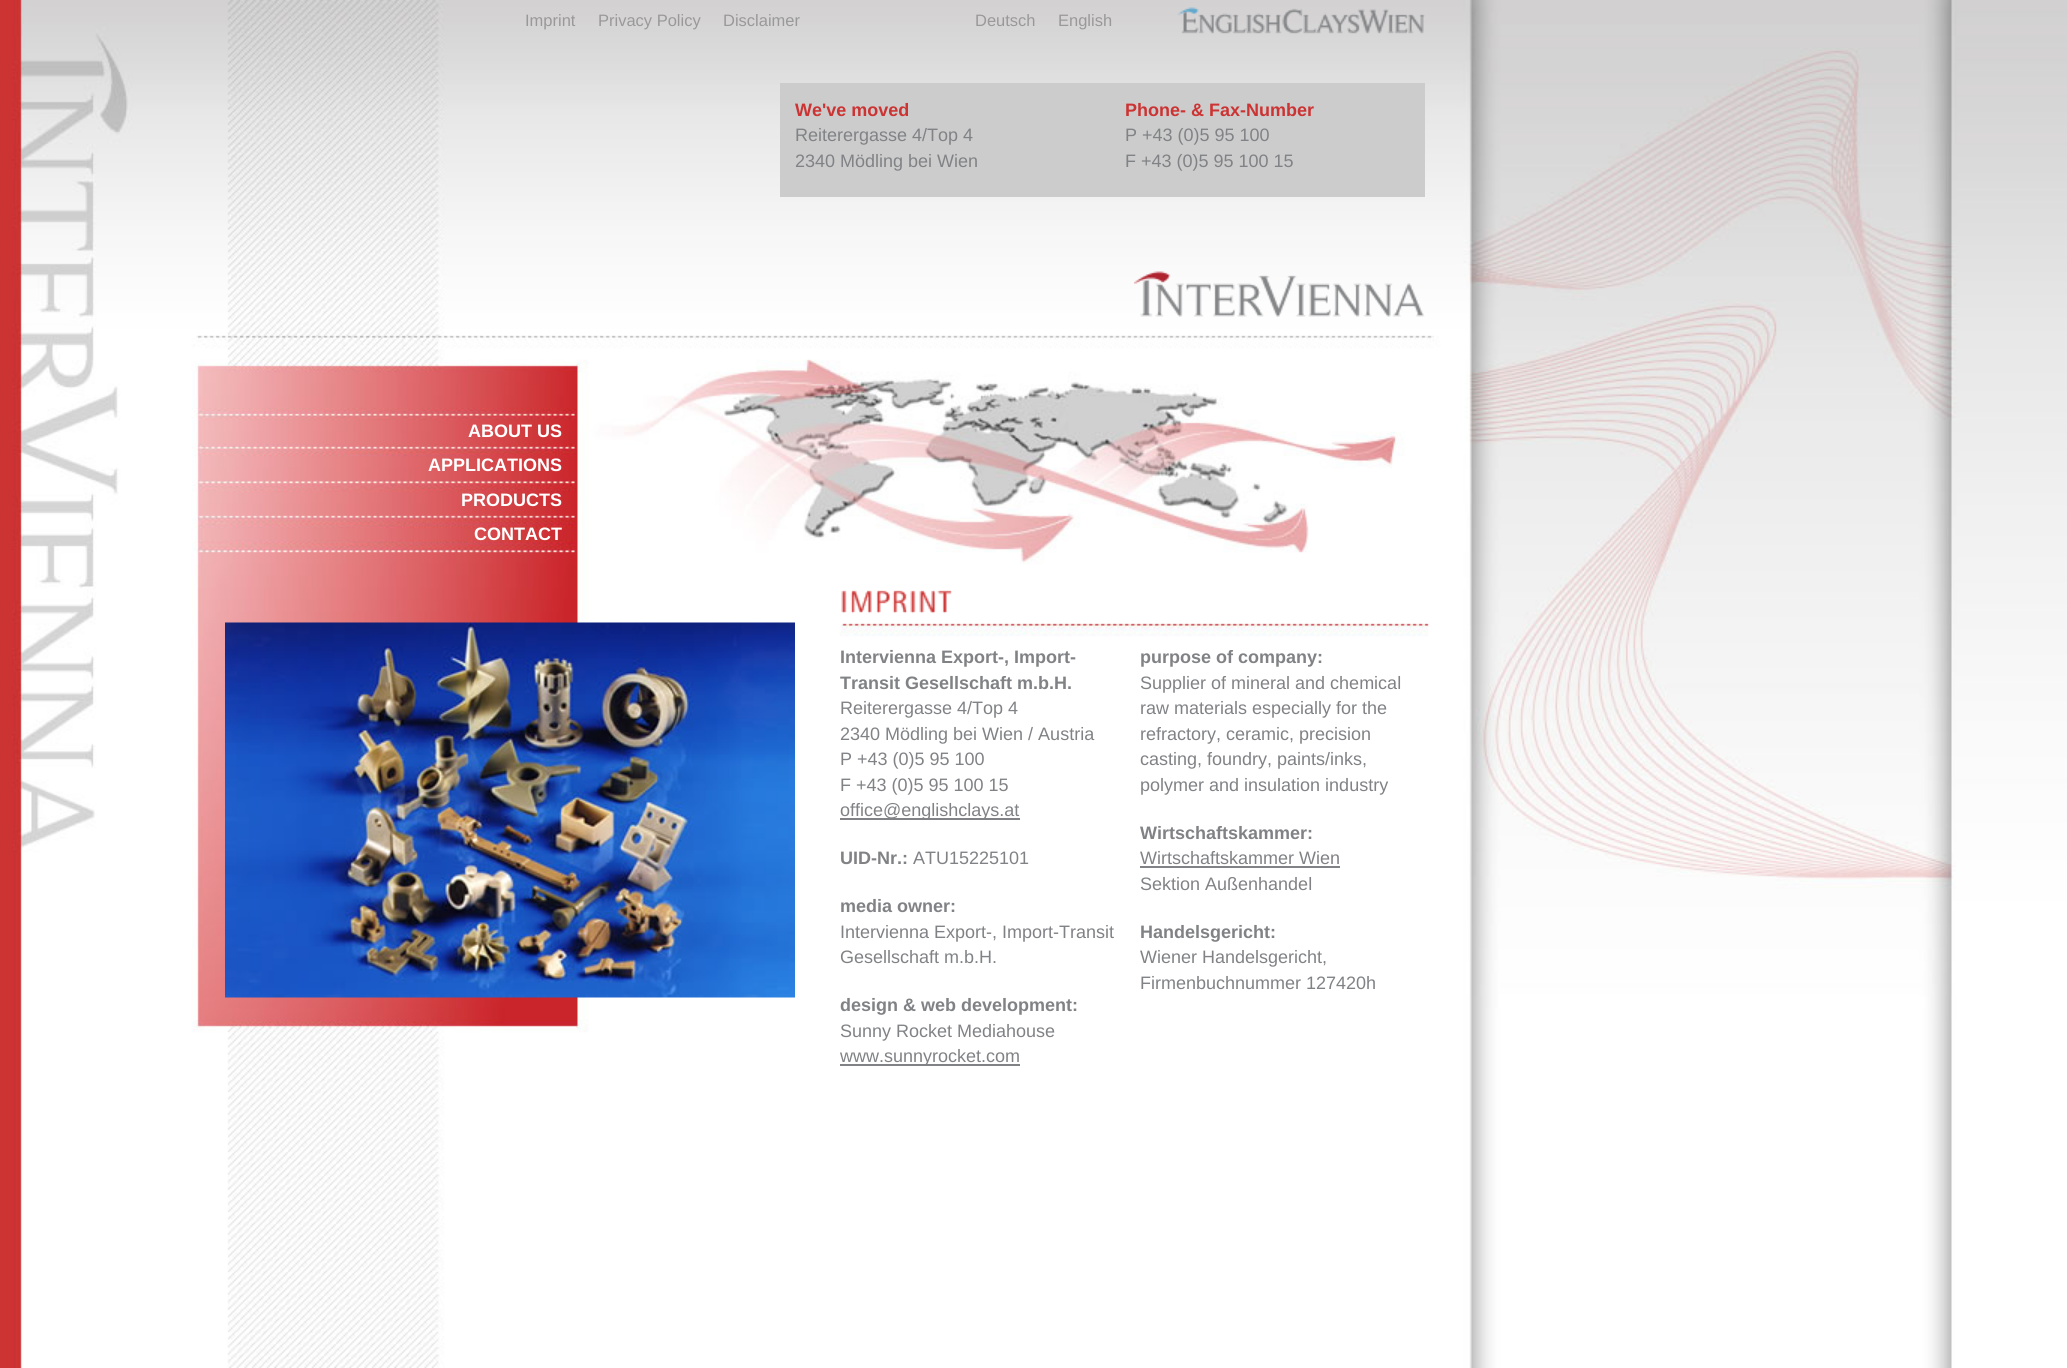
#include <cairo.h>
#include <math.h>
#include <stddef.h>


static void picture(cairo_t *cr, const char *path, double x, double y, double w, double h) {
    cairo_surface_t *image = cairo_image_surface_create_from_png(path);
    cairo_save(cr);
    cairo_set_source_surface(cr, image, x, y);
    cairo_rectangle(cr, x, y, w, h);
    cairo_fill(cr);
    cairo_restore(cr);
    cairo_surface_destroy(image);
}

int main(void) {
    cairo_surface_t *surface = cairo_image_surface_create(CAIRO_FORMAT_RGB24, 2067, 1368);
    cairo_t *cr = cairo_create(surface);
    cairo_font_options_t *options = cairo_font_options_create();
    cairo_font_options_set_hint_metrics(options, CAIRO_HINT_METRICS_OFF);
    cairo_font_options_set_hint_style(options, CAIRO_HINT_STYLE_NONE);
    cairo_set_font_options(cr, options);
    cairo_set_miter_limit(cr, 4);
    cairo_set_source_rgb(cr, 1, 1, 1);
    cairo_paint(cr);
    picture(cr, "img1.png", 0, 0, 2067, 1368);
    cairo_select_font_face(cr, "Liberation Sans", CAIRO_FONT_SLANT_NORMAL, CAIRO_FONT_WEIGHT_NORMAL);
    cairo_set_font_size(cr, 16.5);
    cairo_set_source_rgb(cr, 0.6, 0.6, 0.6);
    cairo_move_to(cr, 525, 26);
    cairo_show_text(cr, "Imprint");
    cairo_move_to(cr, 598, 26);
    cairo_show_text(cr, "Privacy Policy");
    cairo_move_to(cr, 723, 26);
    cairo_show_text(cr, "Disclaimer");
    cairo_move_to(cr, 975, 26);
    cairo_show_text(cr, "Deutsch");
    cairo_move_to(cr, 1058, 26);
    cairo_show_text(cr, "English");
    picture(cr, "img2.png", 1177, 7, 248, 27);
    cairo_set_source_rgb(cr, 0.8, 0.8, 0.8);
    cairo_rectangle(cr, 780, 83, 645, 114);
    cairo_fill(cr);
    cairo_select_font_face(cr, "Liberation Sans", CAIRO_FONT_SLANT_NORMAL, CAIRO_FONT_WEIGHT_BOLD);
    cairo_set_font_size(cr, 18);
    cairo_set_source_rgb(cr, 0.8, 0.2, 0.2);
    cairo_move_to(cr, 795, 116);
    cairo_show_text(cr, "We've moved");
    cairo_select_font_face(cr, "Liberation Sans", CAIRO_FONT_SLANT_NORMAL, CAIRO_FONT_WEIGHT_NORMAL);
    cairo_set_source_rgb(cr, 0.502, 0.51, 0.522);
    cairo_move_to(cr, 795, 141);
    cairo_show_text(cr, "Reiterergasse 4/Top 4");
    cairo_move_to(cr, 795, 167);
    cairo_show_text(cr, "2340 Mödling bei Wien");
    cairo_select_font_face(cr, "Liberation Sans", CAIRO_FONT_SLANT_NORMAL, CAIRO_FONT_WEIGHT_BOLD);
    cairo_set_source_rgb(cr, 0.8, 0.2, 0.2);
    cairo_move_to(cr, 1125, 116);
    cairo_show_text(cr, "Phone- & Fax-Number");
    cairo_select_font_face(cr, "Liberation Sans", CAIRO_FONT_SLANT_NORMAL, CAIRO_FONT_WEIGHT_NORMAL);
    cairo_set_source_rgb(cr, 0.502, 0.51, 0.522);
    cairo_move_to(cr, 1125, 141);
    cairo_show_text(cr, "P +43 (0)5 95 100");
    cairo_move_to(cr, 1125, 167);
    cairo_show_text(cr, "F +43 (0)5 95 100 15");
    picture(cr, "img3.png", 1134, 271, 291, 46);
    cairo_select_font_face(cr, "Liberation Sans", CAIRO_FONT_SLANT_NORMAL, CAIRO_FONT_WEIGHT_BOLD);
    cairo_set_source_rgb(cr, 1, 1, 1);
    cairo_move_to(cr, 468, 437);
    cairo_show_text(cr, "ABOUT US");
    cairo_move_to(cr, 428, 471);
    cairo_show_text(cr, "APPLICATIONS");
    cairo_move_to(cr, 461, 506);
    cairo_show_text(cr, "PRODUCTS");
    cairo_move_to(cr, 474, 540);
    cairo_show_text(cr, "CONTACT");
    picture(cr, "img4.png", 841, 590, 111, 24);
    picture(cr, "img5.png", 225, 622, 570, 376);
    cairo_set_source_rgb(cr, 0.502, 0.51, 0.522);
    cairo_move_to(cr, 840, 663);
    cairo_show_text(cr, "Intervienna Export-, Import-");
    cairo_move_to(cr, 840, 689);
    cairo_show_text(cr, "Transit Gesellschaft m.b.H.");
    cairo_select_font_face(cr, "Liberation Sans", CAIRO_FONT_SLANT_NORMAL, CAIRO_FONT_WEIGHT_NORMAL);
    cairo_move_to(cr, 840, 714);
    cairo_show_text(cr, "Reiterergasse 4/Top 4");
    cairo_move_to(cr, 840, 740);
    cairo_show_text(cr, "2340 Mödling bei Wien / Austria");
    cairo_move_to(cr, 840, 765);
    cairo_show_text(cr, "P +43 (0)5 95 100");
    cairo_move_to(cr, 840, 791);
    cairo_show_text(cr, "F +43 (0)5 95 100 15");
    cairo_rectangle(cr, 840, 818, 180, 2);
    cairo_fill(cr);
    cairo_move_to(cr, 840, 816);
    cairo_show_text(cr, "office@englishclays.at");
    cairo_select_font_face(cr, "Liberation Sans", CAIRO_FONT_SLANT_NORMAL, CAIRO_FONT_WEIGHT_BOLD);
    cairo_move_to(cr, 840, 864);
    cairo_show_text(cr, "UID-Nr.:");
    cairo_select_font_face(cr, "Liberation Sans", CAIRO_FONT_SLANT_NORMAL, CAIRO_FONT_WEIGHT_NORMAL);
    cairo_move_to(cr, 913, 864);
    cairo_show_text(cr, "ATU15225101");
    cairo_select_font_face(cr, "Liberation Sans", CAIRO_FONT_SLANT_NORMAL, CAIRO_FONT_WEIGHT_BOLD);
    cairo_move_to(cr, 840, 912);
    cairo_show_text(cr, "media owner:");
    cairo_select_font_face(cr, "Liberation Sans", CAIRO_FONT_SLANT_NORMAL, CAIRO_FONT_WEIGHT_NORMAL);
    cairo_move_to(cr, 840, 938);
    cairo_show_text(cr, "Intervienna Export-, Import-Transit");
    cairo_move_to(cr, 840, 963);
    cairo_show_text(cr, "Gesellschaft m.b.H.");
    cairo_select_font_face(cr, "Liberation Sans", CAIRO_FONT_SLANT_NORMAL, CAIRO_FONT_WEIGHT_BOLD);
    cairo_move_to(cr, 840, 1011);
    cairo_show_text(cr, "design & web development:");
    cairo_select_font_face(cr, "Liberation Sans", CAIRO_FONT_SLANT_NORMAL, CAIRO_FONT_WEIGHT_NORMAL);
    cairo_move_to(cr, 840, 1037);
    cairo_show_text(cr, "Sunny Rocket Mediahouse");
    cairo_rectangle(cr, 840, 1064, 180, 2);
    cairo_fill(cr);
    cairo_move_to(cr, 840, 1062);
    cairo_show_text(cr, "www.sunnyrocket.com");
    cairo_select_font_face(cr, "Liberation Sans", CAIRO_FONT_SLANT_NORMAL, CAIRO_FONT_WEIGHT_BOLD);
    cairo_move_to(cr, 1140, 663);
    cairo_show_text(cr, "purpose of company:");
    cairo_select_font_face(cr, "Liberation Sans", CAIRO_FONT_SLANT_NORMAL, CAIRO_FONT_WEIGHT_NORMAL);
    cairo_move_to(cr, 1140, 689);
    cairo_show_text(cr, "Supplier of mineral and chemical");
    cairo_move_to(cr, 1140, 714);
    cairo_show_text(cr, "raw materials especially for the");
    cairo_move_to(cr, 1140, 740);
    cairo_show_text(cr, "refractory, ceramic, precision");
    cairo_move_to(cr, 1140, 765);
    cairo_show_text(cr, "casting, foundry, paints/inks,");
    cairo_move_to(cr, 1140, 791);
    cairo_show_text(cr, "polymer and insulation industry");
    cairo_select_font_face(cr, "Liberation Sans", CAIRO_FONT_SLANT_NORMAL, CAIRO_FONT_WEIGHT_BOLD);
    cairo_move_to(cr, 1140, 839);
    cairo_show_text(cr, "Wirtschaftskammer:");
    cairo_select_font_face(cr, "Liberation Sans", CAIRO_FONT_SLANT_NORMAL, CAIRO_FONT_WEIGHT_NORMAL);
    cairo_move_to(cr, 1140, 864);
    cairo_show_text(cr, "Wirtschaftskammer Wien");
    cairo_rectangle(cr, 1140, 866, 200, 2);
    cairo_fill(cr);
    cairo_move_to(cr, 1140, 890);
    cairo_show_text(cr, "Sektion Außenhandel");
    cairo_select_font_face(cr, "Liberation Sans", CAIRO_FONT_SLANT_NORMAL, CAIRO_FONT_WEIGHT_BOLD);
    cairo_move_to(cr, 1140, 938);
    cairo_show_text(cr, "Handelsgericht:");
    cairo_select_font_face(cr, "Liberation Sans", CAIRO_FONT_SLANT_NORMAL, CAIRO_FONT_WEIGHT_NORMAL);
    cairo_move_to(cr, 1140, 963);
    cairo_show_text(cr, "Wiener Handelsgericht,");
    cairo_move_to(cr, 1140, 989);
    cairo_show_text(cr, "Firmenbuchnummer 127420h");
    cairo_surface_write_to_png(surface, "page.png");
    cairo_font_options_destroy(options);
    cairo_destroy(cr);
    cairo_surface_destroy(surface);
    return 0;
}
